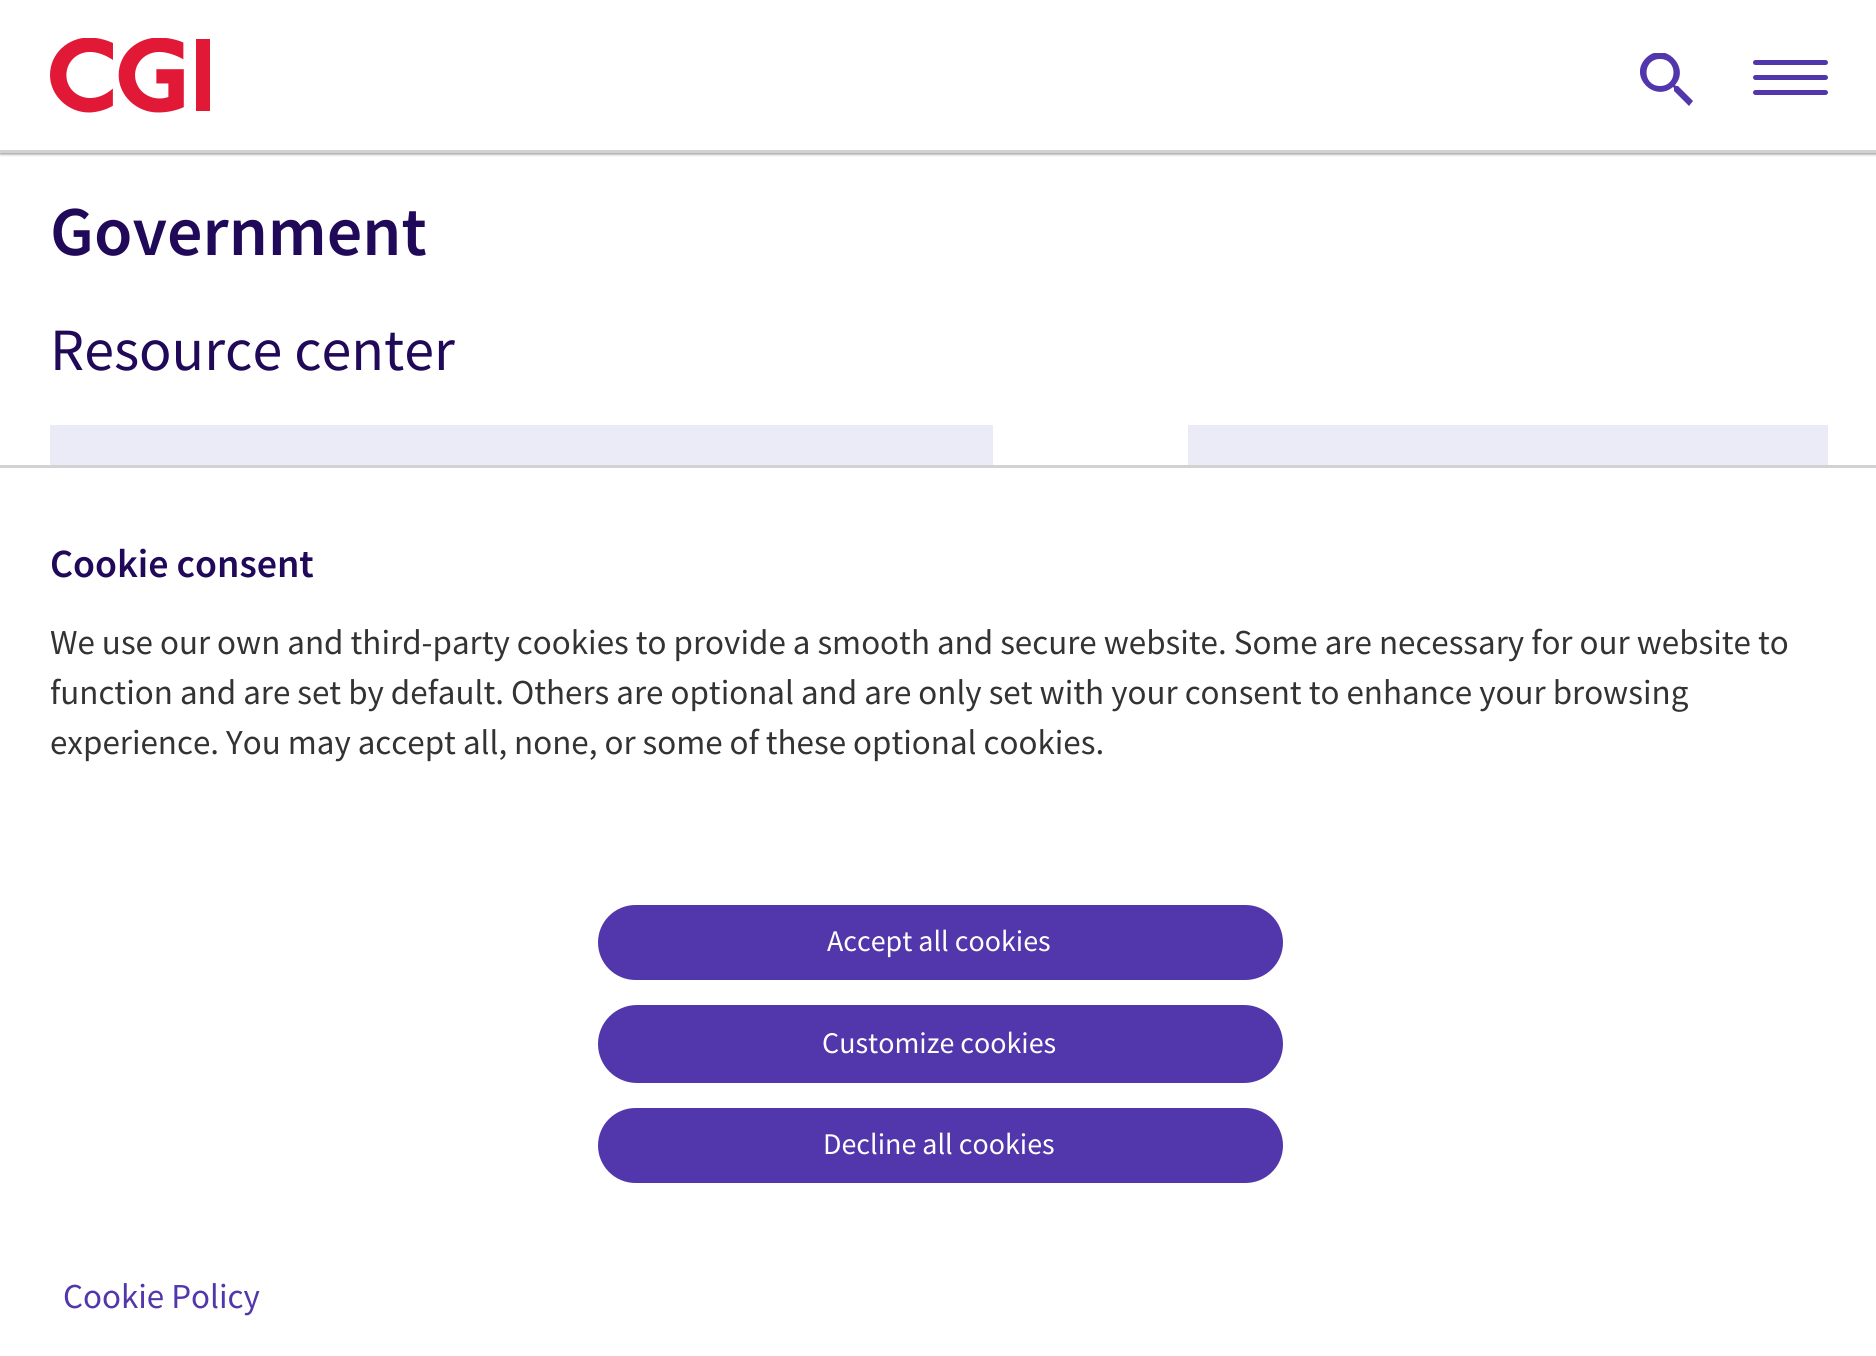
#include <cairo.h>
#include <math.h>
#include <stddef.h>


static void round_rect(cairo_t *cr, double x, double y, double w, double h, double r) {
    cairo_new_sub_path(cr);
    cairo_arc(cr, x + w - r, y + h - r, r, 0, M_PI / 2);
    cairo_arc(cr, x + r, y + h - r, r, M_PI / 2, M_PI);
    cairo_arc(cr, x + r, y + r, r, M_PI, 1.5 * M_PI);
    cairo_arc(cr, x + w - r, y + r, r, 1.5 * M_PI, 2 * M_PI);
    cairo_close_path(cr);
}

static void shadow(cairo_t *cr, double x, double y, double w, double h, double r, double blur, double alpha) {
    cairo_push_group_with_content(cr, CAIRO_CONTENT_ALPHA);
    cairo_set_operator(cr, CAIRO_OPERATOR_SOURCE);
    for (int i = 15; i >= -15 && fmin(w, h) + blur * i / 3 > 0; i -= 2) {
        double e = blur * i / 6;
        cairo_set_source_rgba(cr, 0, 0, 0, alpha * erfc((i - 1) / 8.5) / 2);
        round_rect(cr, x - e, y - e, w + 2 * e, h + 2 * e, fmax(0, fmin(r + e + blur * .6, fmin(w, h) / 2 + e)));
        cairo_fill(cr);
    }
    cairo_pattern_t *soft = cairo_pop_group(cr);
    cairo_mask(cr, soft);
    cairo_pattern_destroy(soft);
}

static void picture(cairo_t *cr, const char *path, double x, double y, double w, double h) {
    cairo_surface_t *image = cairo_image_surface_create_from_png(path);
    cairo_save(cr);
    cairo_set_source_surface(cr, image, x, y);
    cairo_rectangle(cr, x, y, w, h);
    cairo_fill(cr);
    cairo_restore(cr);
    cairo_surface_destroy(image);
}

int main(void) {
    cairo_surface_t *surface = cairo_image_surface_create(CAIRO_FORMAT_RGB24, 1876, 1356);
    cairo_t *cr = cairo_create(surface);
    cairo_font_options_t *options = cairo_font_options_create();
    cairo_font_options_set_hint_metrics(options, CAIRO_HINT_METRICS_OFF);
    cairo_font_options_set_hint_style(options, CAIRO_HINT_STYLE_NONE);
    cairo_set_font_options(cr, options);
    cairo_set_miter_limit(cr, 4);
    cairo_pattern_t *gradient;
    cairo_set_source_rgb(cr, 1, 1, 1);
    cairo_paint(cr);
    cairo_set_source_rgb(cr, 0, 0, 0);
    shadow(cr, 0, 3, 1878, 152, 0, 1, 0.25);
    shadow(cr, 0, 5, 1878, 148, 0, 1, 0.25);
    cairo_set_source_rgb(cr, 1, 1, 1);
    cairo_rectangle(cr, 0, 1, 1876, 149);
    cairo_fill(cr);
    cairo_set_source_rgb(cr, 0.824, 0.824, 0.824);
    cairo_rectangle(cr, 0, 150, 1876, 3);
    cairo_fill(cr);
    picture(cr, "img1.png", 50, 38, 160, 75);
    cairo_save(cr);
    cairo_rectangle(cr, 1640, 53, 55, 55);
    cairo_clip(cr);
    cairo_set_source_rgb(cr, 0.322, 0.212, 0.671);
    cairo_new_path(cr);
    cairo_move_to(cr, 1678, 86);
    cairo_line_to(cr, 1676, 86);
    cairo_line_to(cr, 1675, 85);
    cairo_curve_to(cr, 1691, 67, 1664, 40, 1646, 58);
    cairo_curve_to(cr, 1628, 76, 1654, 103, 1673, 87);
    cairo_line_to(cr, 1674, 88);
    cairo_line_to(cr, 1674, 91);
    cairo_line_to(cr, 1689, 106);
    cairo_line_to(cr, 1693, 101);
    cairo_close_path(cr);
    cairo_move_to(cr, 1660, 86);
    cairo_curve_to(cr, 1642, 86, 1642, 59, 1660, 59);
    cairo_curve_to(cr, 1678, 59, 1678, 86, 1660, 86);
    cairo_close_path(cr);
    cairo_fill(cr);
    cairo_restore(cr);
    cairo_set_source_rgb(cr, 0.322, 0.212, 0.671);
    round_rect(cr, 1753, 90, 75, 5, 2.5);
    cairo_fill(cr);
    round_rect(cr, 1753, 60, 75, 5, 2.5);
    cairo_fill(cr);
    round_rect(cr, 1753, 75, 75, 5, 2.5);
    cairo_fill(cr);
    cairo_select_font_face(cr, "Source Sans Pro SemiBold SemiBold", CAIRO_FONT_SLANT_NORMAL, CAIRO_FONT_WEIGHT_NORMAL);
    cairo_set_font_size(cr, 70);
    cairo_set_source_rgb(cr, 0.125, 0.039, 0.345);
    cairo_move_to(cr, 50, 255);
    cairo_show_text(cr, "Government");
    cairo_select_font_face(cr, "Source Sans Pro", CAIRO_FONT_SLANT_NORMAL, CAIRO_FONT_WEIGHT_NORMAL);
    cairo_set_font_size(cr, 60);
    cairo_move_to(cr, 50, 370);
    cairo_show_text(cr, "Resource center");
    cairo_set_source_rgb(cr, 0.918, 0.918, 0.965);
    cairo_rectangle(cr, 50, 425, 943, 40);
    cairo_fill(cr);
    cairo_rectangle(cr, 1188, 425, 639, 40);
    cairo_fill(cr);
    gradient = cairo_pattern_create_linear(1828, 475, 1703, 475);
    cairo_pattern_add_color_stop_rgba(gradient, 0, 0.918, 0.918, 0.965, 1);
    cairo_pattern_add_color_stop_rgba(gradient, 1, 0.918, 0.918, 0.965, 0);
    cairo_set_source(cr, gradient);
    cairo_pattern_destroy(gradient);
    cairo_rectangle(cr, 1827, 425, 1, 40);
    cairo_fill(cr);
    cairo_set_source_rgb(cr, 0.824, 0.824, 0.824);
    cairo_rectangle(cr, 0, 465, 1876, 3);
    cairo_fill(cr);
    cairo_select_font_face(cr, "Source Sans Pro SemiBold SemiBold", CAIRO_FONT_SLANT_NORMAL, CAIRO_FONT_WEIGHT_NORMAL);
    cairo_set_font_size(cr, 40);
    cairo_set_source_rgb(cr, 0.125, 0.039, 0.345);
    cairo_move_to(cr, 50, 577);
    cairo_show_text(cr, "Cookie consent");
    cairo_select_font_face(cr, "Source Sans Pro", CAIRO_FONT_SLANT_NORMAL, CAIRO_FONT_WEIGHT_NORMAL);
    cairo_set_font_size(cr, 35);
    cairo_set_source_rgb(cr, 0.2, 0.2, 0.2);
    cairo_move_to(cr, 50, 654);
    cairo_show_text(cr, "We use our own and third-party cookies to provide a smooth and secure website. Some are necessary for our website to");
    cairo_move_to(cr, 50, 704);
    cairo_show_text(cr, "function and are set by default. Others are optional and are only set with your consent to enhance your browsing");
    cairo_move_to(cr, 50, 754);
    cairo_show_text(cr, "experience. You may accept all, none, or some of these optional cookies.");
    cairo_set_source_rgb(cr, 0.322, 0.212, 0.671);
    round_rect(cr, 600.5, 907.5, 680, 70, 35);
    cairo_fill_preserve(cr);
    cairo_set_line_width(cr, 5);
    cairo_stroke(cr);
    cairo_set_font_size(cr, 30);
    cairo_set_source_rgb(cr, 1, 1, 1);
    cairo_move_to(cr, 827, 951);
    cairo_show_text(cr, "Accept all cookies");
    cairo_set_source_rgb(cr, 0.322, 0.212, 0.671);
    round_rect(cr, 600.5, 1007.5, 680, 73, 36.5);
    cairo_fill_preserve(cr);
    cairo_stroke(cr);
    cairo_set_source_rgb(cr, 1, 1, 1);
    cairo_move_to(cr, 822, 1053);
    cairo_show_text(cr, "Customize cookies");
    cairo_set_source_rgb(cr, 0.322, 0.212, 0.671);
    round_rect(cr, 600.5, 1110.5, 680, 70, 35);
    cairo_fill_preserve(cr);
    cairo_stroke(cr);
    cairo_set_source_rgb(cr, 1, 1, 1);
    cairo_move_to(cr, 823, 1154);
    cairo_show_text(cr, "Decline all cookies");
    cairo_set_font_size(cr, 35);
    cairo_set_source_rgb(cr, 0.322, 0.212, 0.671);
    cairo_move_to(cr, 63, 1308);
    cairo_show_text(cr, "Cookie Policy");
    cairo_surface_write_to_png(surface, "page.png");
    cairo_font_options_destroy(options);
    cairo_destroy(cr);
    cairo_surface_destroy(surface);
    return 0;
}
